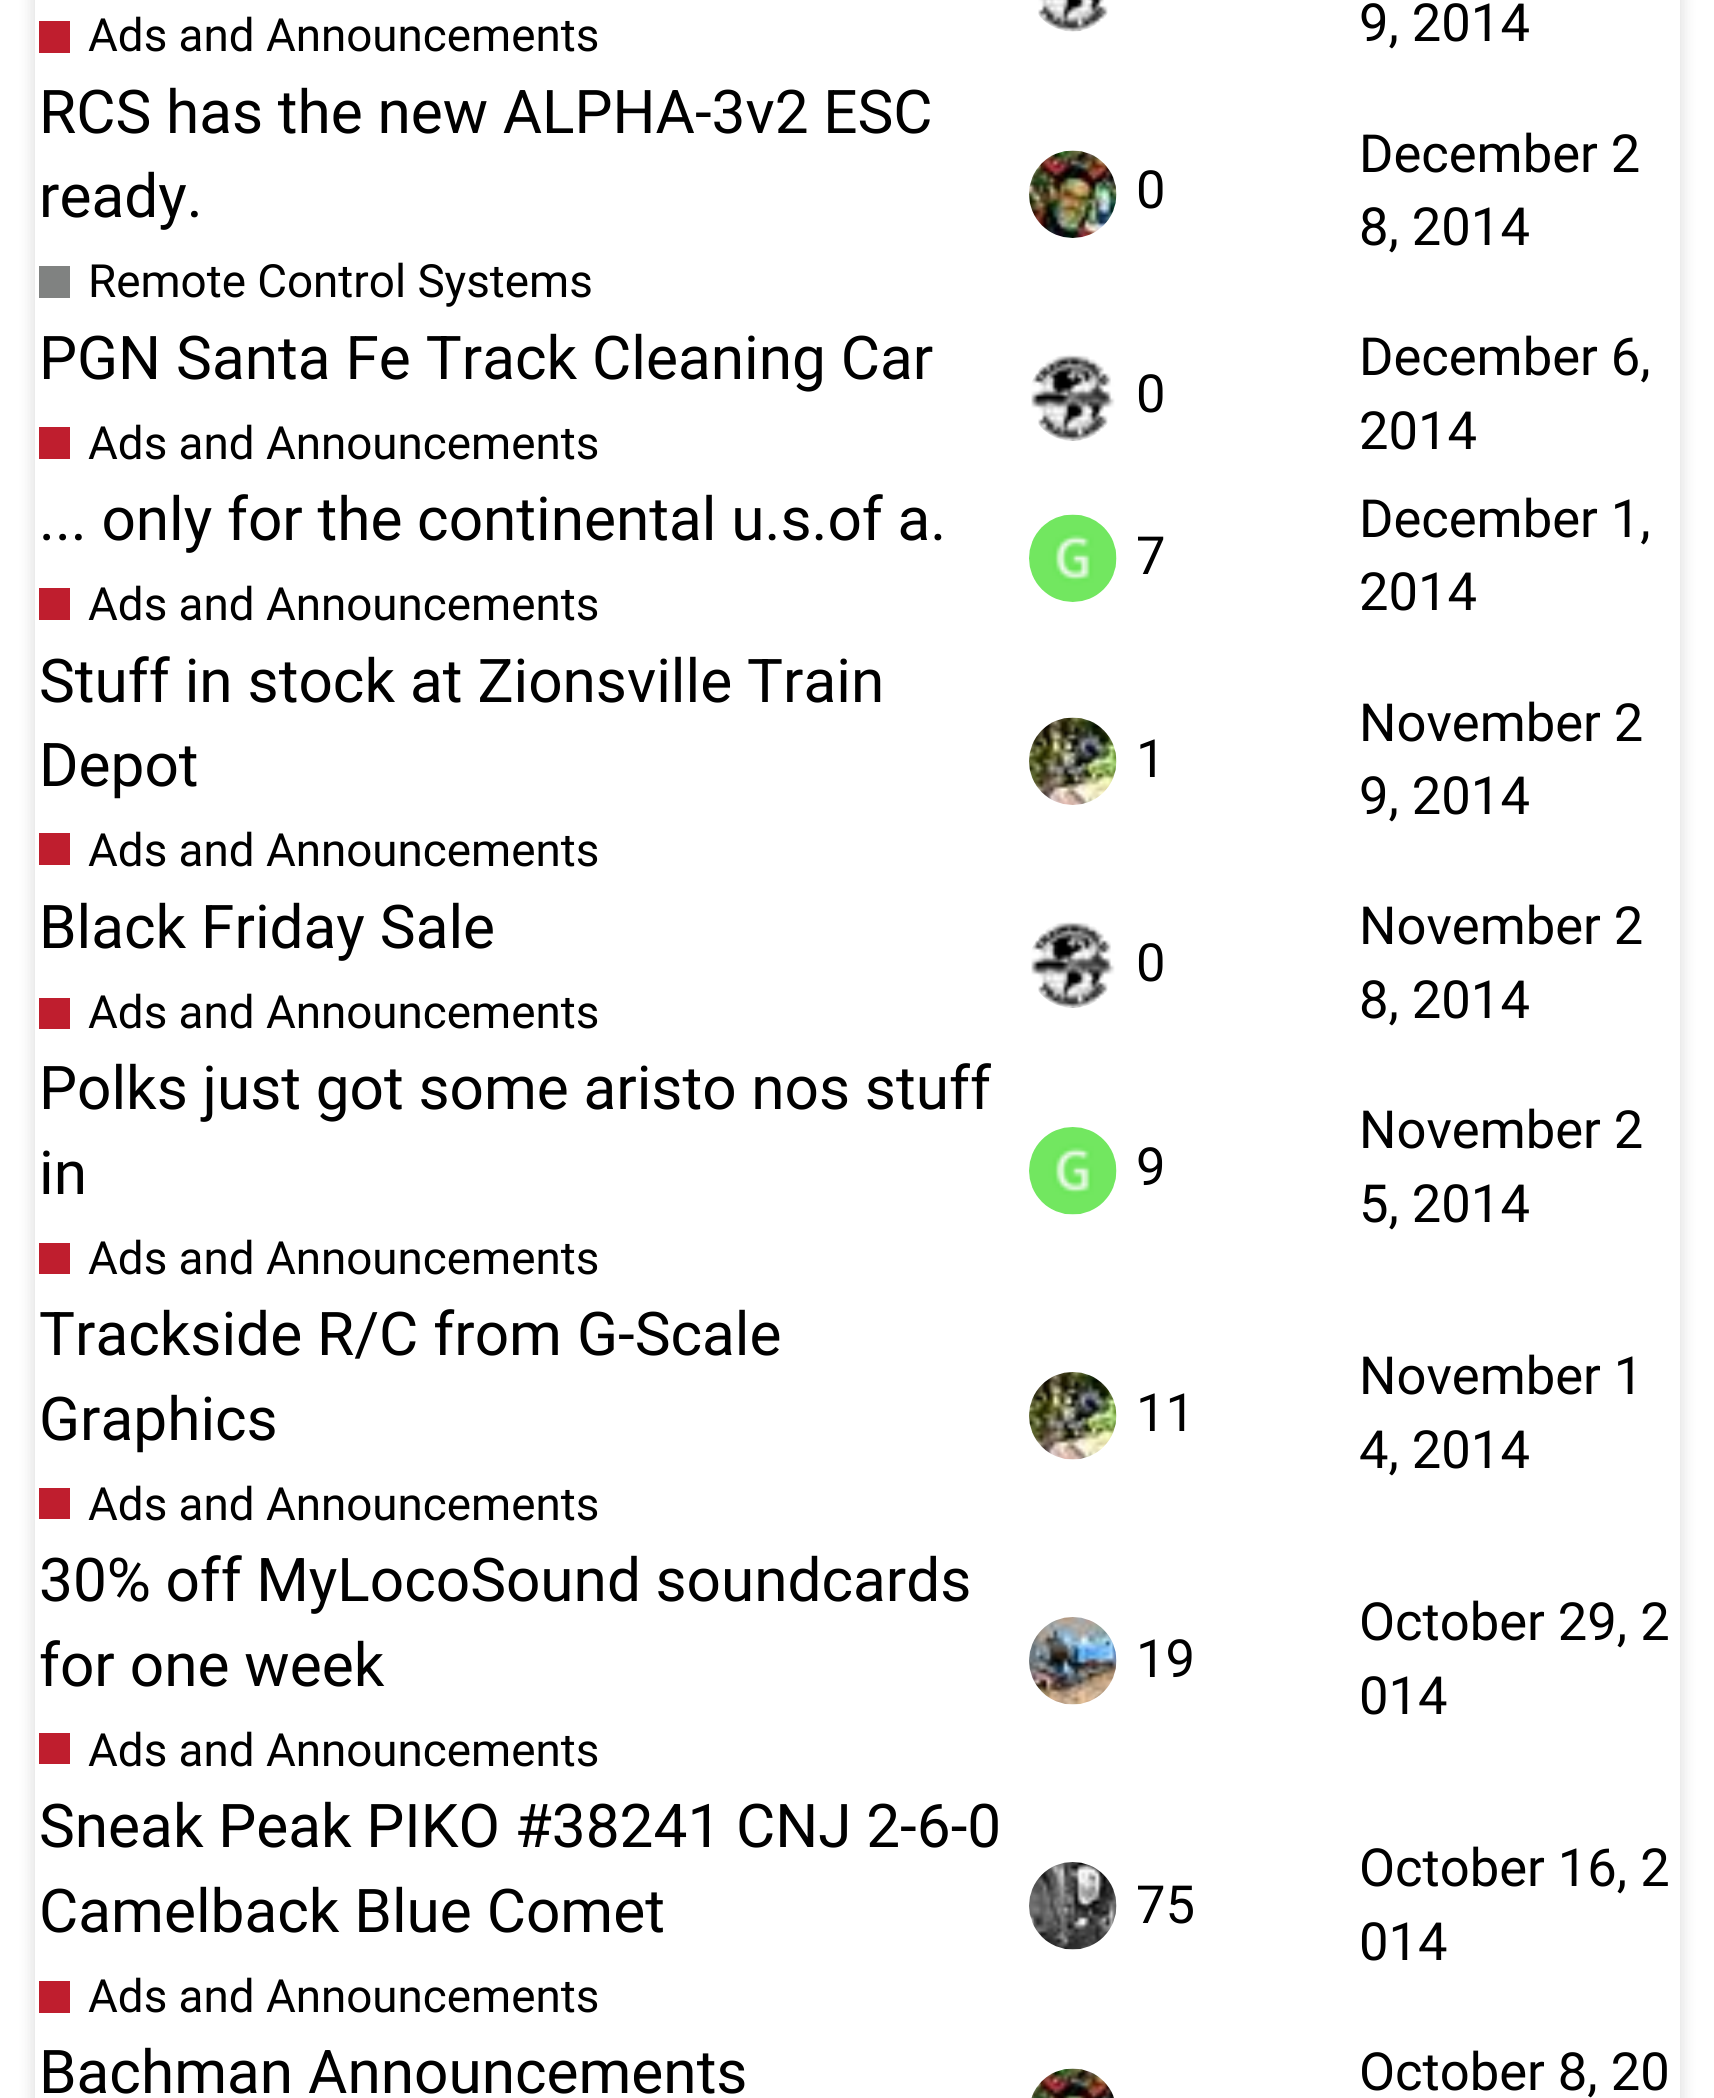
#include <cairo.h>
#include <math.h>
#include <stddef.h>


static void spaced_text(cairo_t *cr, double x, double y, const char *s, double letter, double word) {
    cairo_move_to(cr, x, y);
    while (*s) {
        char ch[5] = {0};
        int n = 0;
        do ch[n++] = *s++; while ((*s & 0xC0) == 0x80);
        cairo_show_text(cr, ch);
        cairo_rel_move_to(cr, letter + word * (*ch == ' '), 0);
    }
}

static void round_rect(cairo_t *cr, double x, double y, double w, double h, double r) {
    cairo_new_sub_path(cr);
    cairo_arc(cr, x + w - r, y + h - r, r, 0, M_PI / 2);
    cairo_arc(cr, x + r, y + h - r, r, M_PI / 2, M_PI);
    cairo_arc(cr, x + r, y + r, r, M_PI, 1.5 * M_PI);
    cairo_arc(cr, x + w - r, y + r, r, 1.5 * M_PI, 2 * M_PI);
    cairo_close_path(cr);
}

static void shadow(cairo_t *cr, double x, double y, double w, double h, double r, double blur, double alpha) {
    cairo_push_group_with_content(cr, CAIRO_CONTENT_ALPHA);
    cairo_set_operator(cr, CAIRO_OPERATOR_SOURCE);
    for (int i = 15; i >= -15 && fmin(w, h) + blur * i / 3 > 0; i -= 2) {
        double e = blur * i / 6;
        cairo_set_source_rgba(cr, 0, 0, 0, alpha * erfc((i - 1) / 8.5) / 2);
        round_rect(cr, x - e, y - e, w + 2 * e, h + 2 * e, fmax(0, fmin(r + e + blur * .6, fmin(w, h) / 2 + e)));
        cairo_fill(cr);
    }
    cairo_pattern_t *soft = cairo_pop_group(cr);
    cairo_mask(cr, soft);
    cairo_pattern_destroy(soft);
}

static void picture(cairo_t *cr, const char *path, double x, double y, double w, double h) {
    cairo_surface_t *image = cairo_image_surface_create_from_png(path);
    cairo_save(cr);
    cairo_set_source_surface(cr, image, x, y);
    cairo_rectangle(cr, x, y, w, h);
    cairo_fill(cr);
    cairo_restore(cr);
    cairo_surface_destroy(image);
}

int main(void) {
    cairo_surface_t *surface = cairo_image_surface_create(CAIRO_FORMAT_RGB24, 1714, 2098);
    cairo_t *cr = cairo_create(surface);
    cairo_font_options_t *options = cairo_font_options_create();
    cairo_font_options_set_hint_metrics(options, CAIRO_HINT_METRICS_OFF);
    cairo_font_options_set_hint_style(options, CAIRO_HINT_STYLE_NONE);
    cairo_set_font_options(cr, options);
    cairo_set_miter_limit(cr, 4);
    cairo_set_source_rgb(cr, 1, 1, 1);
    cairo_paint(cr);
    cairo_save(cr);
    cairo_set_fill_rule(cr, CAIRO_FILL_RULE_EVEN_ODD);
    cairo_new_path(cr);
    cairo_move_to(cr, 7, 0);
    cairo_line_to(cr, 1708, 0);
    cairo_line_to(cr, 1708, 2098);
    cairo_line_to(cr, 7, 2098);
    cairo_close_path(cr);
    cairo_move_to(cr, 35, -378);
    cairo_line_to(cr, 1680, -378);
    cairo_line_to(cr, 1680, 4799);
    cairo_line_to(cr, 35, 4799);
    cairo_close_path(cr);
    cairo_clip(cr);
    cairo_set_source_rgb(cr, 0, 0, 0);
    shadow(cr, 35, -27, 1645, 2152, 0, 9, 0.16);
    cairo_restore(cr);
    cairo_set_source_rgb(cr, 0.749, 0.118, 0.18);
    cairo_rectangle(cr, 39, 21, 31, 32);
    cairo_fill(cr);
    cairo_select_font_face(cr, "Roboto", CAIRO_FONT_SLANT_NORMAL, CAIRO_FONT_WEIGHT_NORMAL);
    cairo_set_font_size(cr, 45.75);
    cairo_set_source_rgb(cr, 0, 0, 0);
    cairo_move_to(cr, 88, 51);
    cairo_show_text(cr, "Ads and Announcements");
    picture(cr, "img1.png", 1038, 0, 70, 32);
    cairo_set_font_size(cr, 52.5);
    cairo_move_to(cr, 1359, 41);
    cairo_show_text(cr, "9, 2014");
    cairo_set_font_size(cr, 60.3);
    spaced_text(cr, 39, 133, "RCS has the new ALPHA-3v2 ESC", 0, -0.25);
    cairo_move_to(cr, 39, 217);
    cairo_show_text(cr, "ready.");
    cairo_set_source_rgb(cr, 0.502, 0.51, 0.506);
    cairo_rectangle(cr, 39, 266, 31, 32);
    cairo_fill(cr);
    cairo_set_font_size(cr, 45.75);
    cairo_set_source_rgb(cr, 0, 0, 0);
    cairo_move_to(cr, 88, 297);
    cairo_show_text(cr, "Remote Control Systems");
    picture(cr, "img2.png", 1029, 150, 88, 88);
    cairo_set_font_size(cr, 52.5);
    cairo_move_to(cr, 1136, 208);
    cairo_show_text(cr, "0");
    cairo_move_to(cr, 1359, 172);
    cairo_show_text(cr, "December 2");
    cairo_move_to(cr, 1359, 245);
    cairo_show_text(cr, "8, 2014");
    cairo_set_font_size(cr, 60.3);
    cairo_move_to(cr, 39, 379);
    cairo_show_text(cr, "PGN Santa Fe Track Cleaning Car");
    cairo_set_source_rgb(cr, 0.749, 0.118, 0.18);
    cairo_rectangle(cr, 39, 427, 31, 32);
    cairo_fill(cr);
    cairo_set_font_size(cr, 45.75);
    cairo_set_source_rgb(cr, 0, 0, 0);
    cairo_move_to(cr, 88, 459);
    cairo_show_text(cr, "Ads and Announcements");
    picture(cr, "img3.png", 1031, 354, 84, 87);
    cairo_set_font_size(cr, 52.5);
    cairo_move_to(cr, 1136, 412);
    cairo_show_text(cr, "0");
    cairo_move_to(cr, 1359, 375);
    cairo_show_text(cr, "December 6,");
    cairo_move_to(cr, 1359, 449);
    cairo_show_text(cr, "2014");
    cairo_set_font_size(cr, 60.3);
    spaced_text(cr, 39, 540, "... only for the continental u.s.of a.", 0, -0.25);
    cairo_set_source_rgb(cr, 0.749, 0.118, 0.18);
    cairo_rectangle(cr, 39, 588, 31, 32);
    cairo_fill(cr);
    cairo_set_font_size(cr, 45.75);
    cairo_set_source_rgb(cr, 0, 0, 0);
    cairo_move_to(cr, 88, 620);
    cairo_show_text(cr, "Ads and Announcements");
    picture(cr, "img4.png", 1029, 514, 88, 88);
    cairo_set_font_size(cr, 52.5);
    cairo_move_to(cr, 1136, 574);
    cairo_show_text(cr, "7");
    cairo_move_to(cr, 1359, 537);
    cairo_show_text(cr, "December 1,");
    cairo_move_to(cr, 1359, 610);
    cairo_show_text(cr, "2014");
    cairo_set_font_size(cr, 60.3);
    cairo_move_to(cr, 39, 702);
    cairo_show_text(cr, "Stuff in stock at Zionsville Train");
    cairo_move_to(cr, 39, 786);
    cairo_show_text(cr, "Depot");
    cairo_set_source_rgb(cr, 0.749, 0.118, 0.18);
    cairo_rectangle(cr, 39, 833, 31, 32);
    cairo_fill(cr);
    cairo_set_font_size(cr, 45.75);
    cairo_set_source_rgb(cr, 0, 0, 0);
    cairo_move_to(cr, 88, 866);
    cairo_show_text(cr, "Ads and Announcements");
    picture(cr, "img5.png", 1029, 717, 88, 88);
    cairo_set_font_size(cr, 52.5);
    cairo_move_to(cr, 1136, 777);
    cairo_show_text(cr, "1");
    cairo_move_to(cr, 1359, 741);
    cairo_show_text(cr, "November 2");
    cairo_move_to(cr, 1359, 814);
    cairo_show_text(cr, "9, 2014");
    cairo_set_font_size(cr, 60.3);
    cairo_move_to(cr, 39, 948);
    cairo_show_text(cr, "Black Friday Sale");
    cairo_set_source_rgb(cr, 0.749, 0.118, 0.18);
    cairo_rectangle(cr, 39, 998, 31, 31);
    cairo_fill(cr);
    cairo_set_font_size(cr, 45.75);
    cairo_set_source_rgb(cr, 0, 0, 0);
    cairo_move_to(cr, 88, 1028);
    cairo_show_text(cr, "Ads and Announcements");
    picture(cr, "img3.png", 1031, 921, 84, 87);
    cairo_set_font_size(cr, 52.5);
    cairo_move_to(cr, 1136, 981);
    cairo_show_text(cr, "0");
    cairo_move_to(cr, 1359, 944);
    cairo_show_text(cr, "November 2");
    cairo_move_to(cr, 1359, 1018);
    cairo_show_text(cr, "8, 2014");
    cairo_set_font_size(cr, 60.3);
    spaced_text(cr, 39, 1109, "Polks just got some aristo nos stuff", 0, -0.25);
    cairo_move_to(cr, 39, 1194);
    cairo_show_text(cr, "in");
    cairo_set_source_rgb(cr, 0.749, 0.118, 0.18);
    cairo_rectangle(cr, 39, 1243, 31, 31);
    cairo_fill(cr);
    cairo_set_font_size(cr, 45.75);
    cairo_set_source_rgb(cr, 0, 0, 0);
    cairo_move_to(cr, 88, 1274);
    cairo_show_text(cr, "Ads and Announcements");
    picture(cr, "img6.png", 1029, 1127, 88, 88);
    cairo_set_font_size(cr, 52.5);
    cairo_move_to(cr, 1136, 1185);
    cairo_show_text(cr, "9");
    cairo_move_to(cr, 1359, 1148);
    cairo_show_text(cr, "November 2");
    cairo_move_to(cr, 1359, 1222);
    cairo_show_text(cr, "5, 2014");
    cairo_set_font_size(cr, 60.3);
    cairo_move_to(cr, 39, 1355);
    cairo_show_text(cr, "Trackside R/C from G-Scale");
    cairo_move_to(cr, 39, 1440);
    cairo_show_text(cr, "Graphics");
    cairo_set_source_rgb(cr, 0.749, 0.118, 0.18);
    cairo_rectangle(cr, 39, 1488, 31, 31);
    cairo_fill(cr);
    cairo_set_font_size(cr, 45.75);
    cairo_set_source_rgb(cr, 0, 0, 0);
    cairo_move_to(cr, 88, 1520);
    cairo_show_text(cr, "Ads and Announcements");
    picture(cr, "img7.png", 1029, 1372, 88, 88);
    cairo_set_font_size(cr, 52.5);
    cairo_move_to(cr, 1136, 1431);
    cairo_show_text(cr, "11");
    cairo_move_to(cr, 1359, 1394);
    cairo_show_text(cr, "November 1");
    cairo_move_to(cr, 1359, 1468);
    cairo_show_text(cr, "4, 2014");
    cairo_set_font_size(cr, 60.3);
    spaced_text(cr, 39, 1601, "30% off MyLocoSound soundcards", 0, -0.5);
    cairo_move_to(cr, 39, 1686);
    cairo_show_text(cr, "for one week");
    cairo_set_source_rgb(cr, 0.749, 0.118, 0.18);
    cairo_rectangle(cr, 39, 1733, 31, 31);
    cairo_fill(cr);
    cairo_set_font_size(cr, 45.75);
    cairo_set_source_rgb(cr, 0, 0, 0);
    cairo_move_to(cr, 88, 1766);
    cairo_show_text(cr, "Ads and Announcements");
    picture(cr, "img8.png", 1029, 1617, 88, 88);
    cairo_set_font_size(cr, 52.5);
    cairo_move_to(cr, 1136, 1677);
    cairo_show_text(cr, "19");
    cairo_move_to(cr, 1359, 1640);
    cairo_show_text(cr, "October 29, 2");
    cairo_move_to(cr, 1359, 1714);
    cairo_show_text(cr, "014");
    cairo_set_font_size(cr, 60.3);
    spaced_text(cr, 39, 1847, "Sneak Peak PIKO #38241 CNJ 2-6-0", 0, -0.25);
    cairo_move_to(cr, 39, 1932);
    cairo_show_text(cr, "Camelback Blue Comet");
    cairo_set_source_rgb(cr, 0.749, 0.118, 0.18);
    cairo_rectangle(cr, 39, 1981, 31, 32);
    cairo_fill(cr);
    cairo_set_font_size(cr, 45.75);
    cairo_set_source_rgb(cr, 0, 0, 0);
    cairo_move_to(cr, 88, 2012);
    cairo_show_text(cr, "Ads and Announcements");
    picture(cr, "img9.png", 1029, 1862, 88, 88);
    cairo_set_font_size(cr, 52.5);
    cairo_move_to(cr, 1136, 1923);
    cairo_show_text(cr, "75");
    cairo_move_to(cr, 1359, 1886);
    cairo_show_text(cr, "October 16, 2");
    cairo_move_to(cr, 1359, 1960);
    cairo_show_text(cr, "014");
    cairo_set_font_size(cr, 60.3);
    cairo_move_to(cr, 39, 2093);
    cairo_show_text(cr, "Bachman Announcements");
    picture(cr, "img10.png", 1031, 2068, 83, 30);
    cairo_set_font_size(cr, 52.5);
    cairo_move_to(cr, 1359, 2090);
    cairo_show_text(cr, "October 8, 20");
    cairo_surface_write_to_png(surface, "page.png");
    cairo_font_options_destroy(options);
    cairo_destroy(cr);
    cairo_surface_destroy(surface);
    return 0;
}
